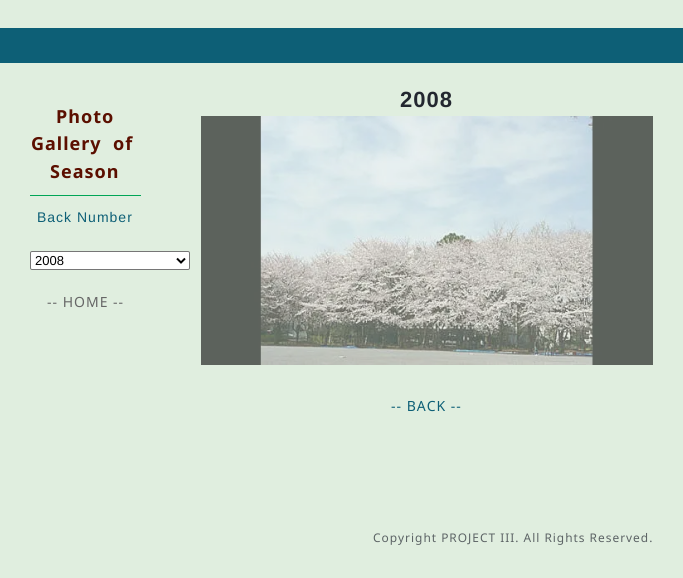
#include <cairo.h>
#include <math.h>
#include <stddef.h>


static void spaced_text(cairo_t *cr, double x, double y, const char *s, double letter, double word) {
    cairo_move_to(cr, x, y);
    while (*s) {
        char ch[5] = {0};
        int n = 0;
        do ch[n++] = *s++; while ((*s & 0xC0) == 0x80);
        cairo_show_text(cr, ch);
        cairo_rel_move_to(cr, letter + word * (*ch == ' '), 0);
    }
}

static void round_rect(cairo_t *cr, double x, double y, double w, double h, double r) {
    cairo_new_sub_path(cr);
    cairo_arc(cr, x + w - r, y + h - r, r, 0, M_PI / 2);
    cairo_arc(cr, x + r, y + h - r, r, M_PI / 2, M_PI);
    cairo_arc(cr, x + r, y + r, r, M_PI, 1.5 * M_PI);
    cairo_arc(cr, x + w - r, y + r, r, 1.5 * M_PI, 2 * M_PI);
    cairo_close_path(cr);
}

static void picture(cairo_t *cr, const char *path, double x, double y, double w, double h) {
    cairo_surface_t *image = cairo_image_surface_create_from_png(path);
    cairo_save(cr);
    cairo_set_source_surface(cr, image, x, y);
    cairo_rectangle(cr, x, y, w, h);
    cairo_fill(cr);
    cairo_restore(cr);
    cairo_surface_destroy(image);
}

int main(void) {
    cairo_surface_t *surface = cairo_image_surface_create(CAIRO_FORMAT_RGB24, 683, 578);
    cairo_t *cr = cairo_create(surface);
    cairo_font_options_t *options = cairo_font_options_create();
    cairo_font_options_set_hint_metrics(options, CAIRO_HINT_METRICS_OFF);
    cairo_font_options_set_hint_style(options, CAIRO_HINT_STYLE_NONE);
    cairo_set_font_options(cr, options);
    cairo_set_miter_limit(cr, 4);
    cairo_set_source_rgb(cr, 0.878, 0.933, 0.875);
    cairo_paint(cr);
    cairo_set_source_rgb(cr, 0.051, 0.373, 0.463);
    cairo_rectangle(cr, 0, 28, 683, 35);
    cairo_fill(cr);
    cairo_select_font_face(cr, "Noto Sans", CAIRO_FONT_SLANT_NORMAL, CAIRO_FONT_WEIGHT_BOLD);
    cairo_set_font_size(cr, 18);
    cairo_set_source_rgb(cr, 0.357, 0.059, 0);
    spaced_text(cr, 56, 123, "Photo", 1, 0);
    spaced_text(cr, 31, 150, "Gallery", 1, 0);
    spaced_text(cr, 113, 150, "of", 1, 0);
    spaced_text(cr, 50, 178, "Season", 1, 0);
    cairo_set_source_rgb(cr, 0, 0.647, 0.337);
    cairo_rectangle(cr, 30, 195, 111, 1);
    cairo_fill(cr);
    cairo_select_font_face(cr, "Liberation Sans", CAIRO_FONT_SLANT_NORMAL, CAIRO_FONT_WEIGHT_NORMAL);
    cairo_set_font_size(cr, 14);
    cairo_set_source_rgb(cr, 0.051, 0.373, 0.463);
    spaced_text(cr, 37, 222, "Back Number", 1, 0);
    cairo_set_source_rgb(cr, 1, 1, 1);
    round_rect(cr, 30.5, 251.5, 159, 18, 1.5);
    cairo_fill_preserve(cr);
    cairo_set_source_rgb(cr, 0.463, 0.463, 0.463);
    cairo_set_line_width(cr, 1);
    cairo_stroke(cr);
    cairo_new_path(cr);
    cairo_move_to(cr, 177, 258.5);
    cairo_line_to(cr, 181, 262.5);
    cairo_line_to(cr, 185, 258.5);
    cairo_set_source_rgb(cr, 0, 0, 0);
    cairo_set_line_width(cr, 2);
    cairo_stroke(cr);
    cairo_set_font_size(cr, 13);
    cairo_move_to(cr, 35, 265);
    cairo_show_text(cr, "2008");
    cairo_select_font_face(cr, "Noto Sans", CAIRO_FONT_SLANT_NORMAL, CAIRO_FONT_WEIGHT_NORMAL);
    cairo_set_font_size(cr, 14);
    cairo_set_source_rgb(cr, 0.4, 0.4, 0.4);
    spaced_text(cr, 47, 307, "-- HOME --", 1, 0);
    cairo_select_font_face(cr, "Liberation Sans", CAIRO_FONT_SLANT_NORMAL, CAIRO_FONT_WEIGHT_BOLD);
    cairo_set_font_size(cr, 22);
    cairo_set_source_rgb(cr, 0.137, 0.153, 0.188);
    spaced_text(cr, 400, 107, "2008", 1, 0);
    picture(cr, "img1.png", 201, 116, 452, 249);
    cairo_select_font_face(cr, "Noto Sans", CAIRO_FONT_SLANT_NORMAL, CAIRO_FONT_WEIGHT_NORMAL);
    cairo_set_font_size(cr, 14);
    cairo_set_source_rgb(cr, 0.051, 0.373, 0.463);
    spaced_text(cr, 391, 411, "-- BACK --", 1, 0);
    cairo_set_font_size(cr, 11.9);
    cairo_set_source_rgb(cr, 0.361, 0.388, 0.396);
    spaced_text(cr, 373, 542, "Copyright PROJECT III. All Rights Reserved.", 1, 0);
    cairo_surface_write_to_png(surface, "page.png");
    cairo_font_options_destroy(options);
    cairo_destroy(cr);
    cairo_surface_destroy(surface);
    return 0;
}
